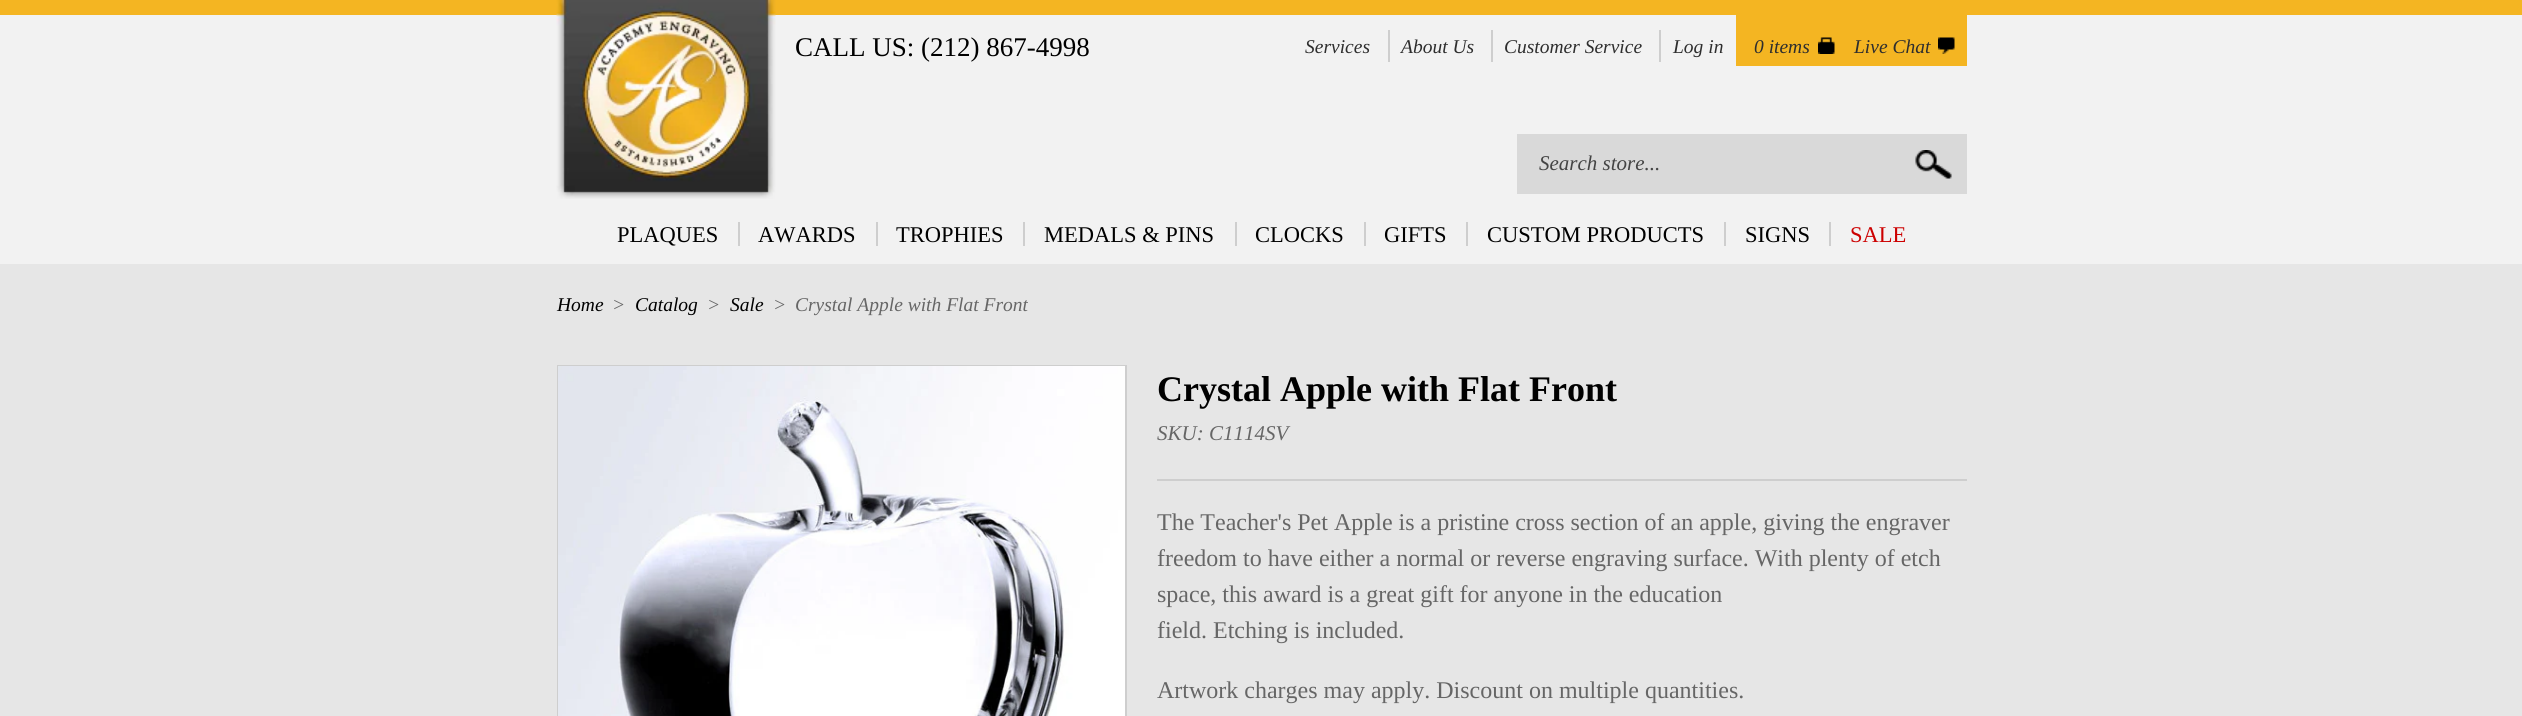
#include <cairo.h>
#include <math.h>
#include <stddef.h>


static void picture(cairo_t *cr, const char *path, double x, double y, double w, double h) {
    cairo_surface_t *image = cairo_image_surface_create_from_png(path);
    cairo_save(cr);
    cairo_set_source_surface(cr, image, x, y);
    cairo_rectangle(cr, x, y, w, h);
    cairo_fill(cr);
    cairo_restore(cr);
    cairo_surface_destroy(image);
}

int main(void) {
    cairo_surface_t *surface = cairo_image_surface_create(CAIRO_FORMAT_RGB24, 2522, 716);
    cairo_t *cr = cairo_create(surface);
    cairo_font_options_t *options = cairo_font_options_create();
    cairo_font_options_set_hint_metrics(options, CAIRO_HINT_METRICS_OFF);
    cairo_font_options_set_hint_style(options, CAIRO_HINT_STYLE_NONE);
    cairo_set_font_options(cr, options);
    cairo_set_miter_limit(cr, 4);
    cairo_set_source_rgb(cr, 0.949, 0.949, 0.949);
    cairo_paint(cr);
    cairo_set_source_rgb(cr, 0.957, 0.71, 0.133);
    cairo_rectangle(cr, 0, 0, 2522, 15);
    cairo_fill(cr);
    picture(cr, "img1.png", 556, 0, 220, 199);
    cairo_select_font_face(cr, "Liberation Serif", CAIRO_FONT_SLANT_NORMAL, CAIRO_FONT_WEIGHT_NORMAL);
    cairo_set_font_size(cr, 27);
    cairo_set_source_rgb(cr, 0, 0, 0);
    cairo_move_to(cr, 795, 56);
    cairo_show_text(cr, "CALL US: (212) 867-4998");
    cairo_select_font_face(cr, "Liberation Serif", CAIRO_FONT_SLANT_ITALIC, CAIRO_FONT_WEIGHT_NORMAL);
    cairo_set_font_size(cr, 19.5);
    cairo_set_source_rgb(cr, 0.18, 0.18, 0.18);
    cairo_move_to(cr, 1305, 53);
    cairo_show_text(cr, "Services");
    cairo_set_source_rgb(cr, 0.808, 0.808, 0.808);
    cairo_rectangle(cr, 1388, 30, 2, 32);
    cairo_fill(cr);
    cairo_set_source_rgb(cr, 0.18, 0.18, 0.18);
    cairo_move_to(cr, 1401, 53);
    cairo_show_text(cr, "About Us");
    cairo_set_source_rgb(cr, 0.808, 0.808, 0.808);
    cairo_rectangle(cr, 1491, 30, 2, 32);
    cairo_fill(cr);
    cairo_set_source_rgb(cr, 0.18, 0.18, 0.18);
    cairo_move_to(cr, 1504, 53);
    cairo_show_text(cr, "Customer Service");
    cairo_set_source_rgb(cr, 0.808, 0.808, 0.808);
    cairo_rectangle(cr, 1659, 30, 2, 32);
    cairo_fill(cr);
    cairo_set_source_rgb(cr, 0.18, 0.18, 0.18);
    cairo_move_to(cr, 1673, 53);
    cairo_show_text(cr, "Log in");
    cairo_set_source_rgb(cr, 0.957, 0.71, 0.133);
    cairo_rectangle(cr, 1736, 15, 231, 51);
    cairo_fill(cr);
    picture(cr, "img2.png", 1818, 37, 17, 17);
    cairo_set_source_rgb(cr, 0.18, 0.18, 0.18);
    cairo_move_to(cr, 1754, 53);
    cairo_show_text(cr, "0 items");
    picture(cr, "img3.png", 1938, 37, 17, 17);
    cairo_move_to(cr, 1854, 53);
    cairo_show_text(cr, "Live Chat");
    cairo_set_source_rgb(cr, 0.851, 0.851, 0.851);
    cairo_rectangle(cr, 1517, 134, 450, 60);
    cairo_fill(cr);
    cairo_set_font_size(cr, 21);
    cairo_set_source_rgb(cr, 0.267, 0.267, 0.267);
    cairo_move_to(cr, 1539, 170);
    cairo_show_text(cr, "Search store...");
    picture(cr, "img4.png", 1915, 150, 37, 29);
    cairo_select_font_face(cr, "Liberation Serif", CAIRO_FONT_SLANT_NORMAL, CAIRO_FONT_WEIGHT_NORMAL);
    cairo_set_font_size(cr, 22.5);
    cairo_set_source_rgb(cr, 0, 0, 0);
    cairo_move_to(cr, 617, 242);
    cairo_show_text(cr, "PLAQUES");
    cairo_move_to(cr, 758, 242);
    cairo_show_text(cr, "AWARDS");
    cairo_set_source_rgb(cr, 0.808, 0.808, 0.808);
    cairo_rectangle(cr, 738, 222, 2, 24);
    cairo_fill(cr);
    cairo_set_source_rgb(cr, 0, 0, 0);
    cairo_move_to(cr, 896, 242);
    cairo_show_text(cr, "TROPHIES");
    cairo_set_source_rgb(cr, 0.808, 0.808, 0.808);
    cairo_rectangle(cr, 876, 222, 2, 24);
    cairo_fill(cr);
    cairo_rectangle(cr, 1023, 222, 2, 24);
    cairo_fill(cr);
    cairo_set_source_rgb(cr, 0, 0, 0);
    cairo_move_to(cr, 1044, 242);
    cairo_show_text(cr, "MEDALS & PINS");
    cairo_move_to(cr, 1255, 242);
    cairo_show_text(cr, "CLOCKS");
    cairo_set_source_rgb(cr, 0.808, 0.808, 0.808);
    cairo_rectangle(cr, 1235, 222, 2, 24);
    cairo_fill(cr);
    cairo_set_source_rgb(cr, 0, 0, 0);
    cairo_move_to(cr, 1384, 242);
    cairo_show_text(cr, "GIFTS");
    cairo_set_source_rgb(cr, 0.808, 0.808, 0.808);
    cairo_rectangle(cr, 1364, 222, 2, 24);
    cairo_fill(cr);
    cairo_rectangle(cr, 1466, 222, 2, 24);
    cairo_fill(cr);
    cairo_set_source_rgb(cr, 0, 0, 0);
    cairo_move_to(cr, 1487, 242);
    cairo_show_text(cr, "CUSTOM PRODUCTS");
    cairo_move_to(cr, 1745, 242);
    cairo_show_text(cr, "SIGNS");
    cairo_set_source_rgb(cr, 0.808, 0.808, 0.808);
    cairo_rectangle(cr, 1724, 222, 2, 24);
    cairo_fill(cr);
    cairo_rectangle(cr, 1829, 222, 2, 24);
    cairo_fill(cr);
    cairo_set_source_rgb(cr, 0.8, 0, 0);
    cairo_move_to(cr, 1850, 242);
    cairo_show_text(cr, "SALE");
    cairo_set_source_rgb(cr, 0.902, 0.902, 0.902);
    cairo_rectangle(cr, 0, 264, 2522, 452);
    cairo_fill(cr);
    cairo_select_font_face(cr, "Liberation Serif", CAIRO_FONT_SLANT_ITALIC, CAIRO_FONT_WEIGHT_NORMAL);
    cairo_set_font_size(cr, 19.5);
    cairo_set_source_rgb(cr, 0, 0, 0);
    cairo_move_to(cr, 557, 311);
    cairo_show_text(cr, "Home");
    cairo_set_source_rgb(cr, 0.4, 0.4, 0.4);
    cairo_move_to(cr, 612, 311);
    cairo_show_text(cr, ">");
    cairo_set_source_rgb(cr, 0, 0, 0);
    cairo_move_to(cr, 635, 311);
    cairo_show_text(cr, "Catalog");
    cairo_set_source_rgb(cr, 0.4, 0.4, 0.4);
    cairo_move_to(cr, 707, 311);
    cairo_show_text(cr, ">");
    cairo_set_source_rgb(cr, 0, 0, 0);
    cairo_move_to(cr, 730, 311);
    cairo_show_text(cr, "Sale");
    cairo_set_source_rgb(cr, 0.4, 0.4, 0.4);
    cairo_move_to(cr, 773, 311);
    cairo_show_text(cr, ">");
    cairo_move_to(cr, 795, 311);
    cairo_show_text(cr, "Crystal Apple with Flat Front");
    cairo_rectangle(cr, 558, 366, 568, 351);
    cairo_set_source_rgb(cr, 0.808, 0.808, 0.808);
    cairo_stroke(cr);
    picture(cr, "img5.png", 558, 366, 567, 350);
    cairo_select_font_face(cr, "Liberation Serif", CAIRO_FONT_SLANT_NORMAL, CAIRO_FONT_WEIGHT_BOLD);
    cairo_set_font_size(cr, 36);
    cairo_set_source_rgb(cr, 0, 0, 0);
    cairo_move_to(cr, 1157, 401);
    cairo_show_text(cr, "Crystal Apple with Flat Front");
    cairo_select_font_face(cr, "Liberation Serif", CAIRO_FONT_SLANT_ITALIC, CAIRO_FONT_WEIGHT_NORMAL);
    cairo_set_font_size(cr, 21);
    cairo_set_source_rgb(cr, 0.4, 0.4, 0.4);
    cairo_move_to(cr, 1157, 440);
    cairo_show_text(cr, "SKU: C1114SV");
    cairo_set_source_rgb(cr, 0.808, 0.808, 0.808);
    cairo_rectangle(cr, 1157, 479, 810, 2);
    cairo_fill(cr);
    cairo_select_font_face(cr, "Liberation Serif", CAIRO_FONT_SLANT_NORMAL, CAIRO_FONT_WEIGHT_NORMAL);
    cairo_set_font_size(cr, 24);
    cairo_set_source_rgb(cr, 0.4, 0.4, 0.4);
    cairo_move_to(cr, 1157, 530);
    cairo_show_text(cr, "The Teacher's Pet Apple is a pristine cross section of an apple, giving the engraver");
    cairo_move_to(cr, 1157, 566);
    cairo_show_text(cr, "freedom to have either a normal or reverse engraving surface. With plenty of etch");
    cairo_move_to(cr, 1157, 602);
    cairo_show_text(cr, "space, this award is a great gift for anyone in the education");
    cairo_move_to(cr, 1157, 638);
    cairo_show_text(cr, "field. Etching is included.");
    cairo_move_to(cr, 1157, 698);
    cairo_show_text(cr, "Artwork charges may apply. Discount on multiple quantities.");
    cairo_surface_write_to_png(surface, "page.png");
    cairo_font_options_destroy(options);
    cairo_destroy(cr);
    cairo_surface_destroy(surface);
    return 0;
}
